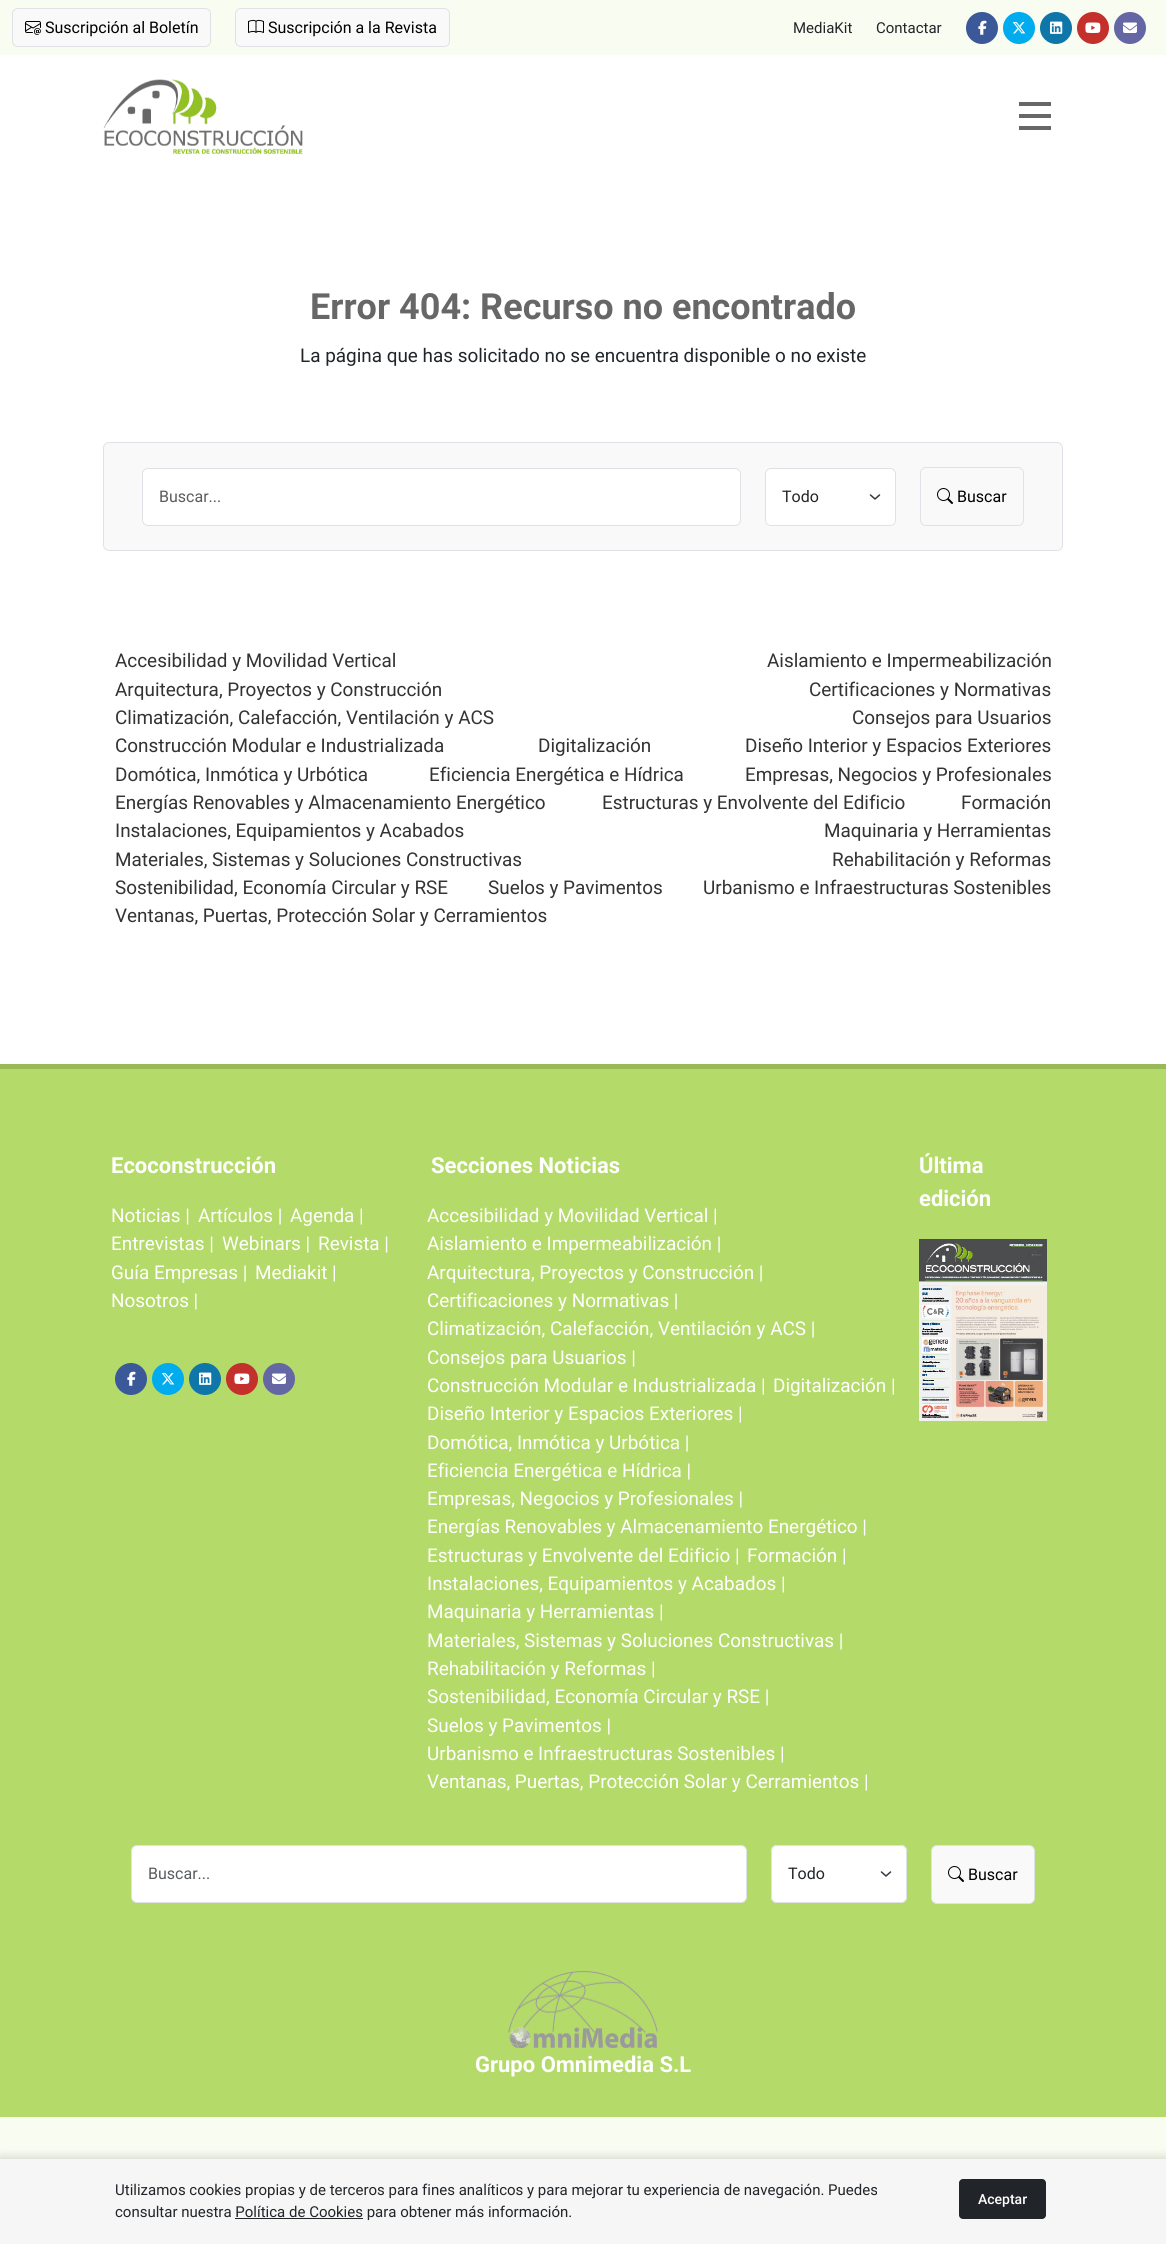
#include <cairo.h>
#include <math.h>
#include <stddef.h>


static void round_rect(cairo_t *cr, double x, double y, double w, double h, double r) {
    cairo_new_sub_path(cr);
    cairo_arc(cr, x + w - r, y + h - r, r, 0, M_PI / 2);
    cairo_arc(cr, x + r, y + h - r, r, M_PI / 2, M_PI);
    cairo_arc(cr, x + r, y + r, r, M_PI, 1.5 * M_PI);
    cairo_arc(cr, x + w - r, y + r, r, 1.5 * M_PI, 2 * M_PI);
    cairo_close_path(cr);
}

static void shadow(cairo_t *cr, double x, double y, double w, double h, double r, double blur, double alpha) {
    cairo_push_group_with_content(cr, CAIRO_CONTENT_ALPHA);
    cairo_set_operator(cr, CAIRO_OPERATOR_SOURCE);
    for (int i = 15; i >= -15 && fmin(w, h) + blur * i / 3 > 0; i -= 2) {
        double e = blur * i / 6;
        cairo_set_source_rgba(cr, 0, 0, 0, alpha * erfc((i - 1) / 8.5) / 2);
        round_rect(cr, x - e, y - e, w + 2 * e, h + 2 * e, fmax(0, fmin(r + e + blur * .6, fmin(w, h) / 2 + e)));
        cairo_fill(cr);
    }
    cairo_pattern_t *soft = cairo_pop_group(cr);
    cairo_mask(cr, soft);
    cairo_pattern_destroy(soft);
}

static void picture(cairo_t *cr, const char *path, double x, double y, double w, double h) {
    cairo_surface_t *image = cairo_image_surface_create_from_png(path);
    cairo_save(cr);
    cairo_set_source_surface(cr, image, x, y);
    cairo_rectangle(cr, x, y, w, h);
    cairo_fill(cr);
    cairo_restore(cr);
    cairo_surface_destroy(image);
}

int main(void) {
    cairo_surface_t *surface = cairo_image_surface_create(CAIRO_FORMAT_RGB24, 1166, 2244);
    cairo_t *cr = cairo_create(surface);
    cairo_font_options_t *options = cairo_font_options_create();
    cairo_font_options_set_hint_metrics(options, CAIRO_HINT_METRICS_OFF);
    cairo_font_options_set_hint_style(options, CAIRO_HINT_STYLE_NONE);
    cairo_set_font_options(cr, options);
    cairo_set_miter_limit(cr, 4);
    cairo_set_source_rgb(cr, 1, 1, 1);
    cairo_paint(cr);
    cairo_set_source_rgb(cr, 0.973, 0.988, 0.945);
    cairo_rectangle(cr, 0, 0, 1166, 55);
    cairo_fill(cr);
    cairo_set_source_rgb(cr, 0.973, 0.976, 0.98);
    round_rect(cr, 12.5, 8.5, 198, 38, 5.5);
    cairo_fill_preserve(cr);
    cairo_set_source_rgb(cr, 0.871, 0.886, 0.902);
    cairo_set_line_width(cr, 1);
    cairo_stroke(cr);
    picture(cr, "img1.png", 25, 21, 16, 14);
    cairo_select_font_face(cr, "Roboto", CAIRO_FONT_SLANT_NORMAL, CAIRO_FONT_WEIGHT_NORMAL);
    cairo_set_font_size(cr, 16);
    cairo_set_source_rgb(cr, 0, 0, 0);
    cairo_move_to(cr, 45, 33);
    cairo_show_text(cr, "Suscripción al Boletín");
    cairo_set_source_rgb(cr, 0.973, 0.976, 0.98);
    round_rect(cr, 235.5, 8.5, 214, 38, 5.5);
    cairo_fill_preserve(cr);
    cairo_set_source_rgb(cr, 0.871, 0.886, 0.902);
    cairo_stroke(cr);
    picture(cr, "img2.png", 248, 19, 16, 14);
    cairo_set_source_rgb(cr, 0, 0, 0);
    cairo_move_to(cr, 268, 33);
    cairo_show_text(cr, "Suscripción a la Revista");
    cairo_set_font_size(cr, 15);
    cairo_set_source_rgb(cr, 0.129, 0.145, 0.161);
    cairo_move_to(cr, 793, 33);
    cairo_show_text(cr, "MediaKit");
    cairo_move_to(cr, 876, 33);
    cairo_show_text(cr, "Contactar");
    cairo_set_source_rgb(cr, 0.231, 0.349, 0.596);
    cairo_new_path(cr);
    cairo_arc(cr, 982, 28, 16, 0, 2 * M_PI);
    cairo_fill(cr);
    picture(cr, "img3.png", 978, 20, 9, 15);
    cairo_set_source_rgb(cr, 0, 0.675, 0.933);
    cairo_arc(cr, 1019, 28, 16, 0, 2 * M_PI);
    cairo_fill(cr);
    picture(cr, "img4.png", 1012, 22, 14, 12);
    cairo_set_source_rgb(cr, 0.055, 0.463, 0.659);
    cairo_arc(cr, 1056, 28, 16, 0, 2 * M_PI);
    cairo_fill(cr);
    picture(cr, "img5.png", 1050, 21, 13, 13);
    cairo_set_source_rgb(cr, 0.769, 0.188, 0.169);
    cairo_arc(cr, 1093, 28, 16, 0, 2 * M_PI);
    cairo_fill(cr);
    picture(cr, "img6.png", 1085, 22, 16, 11);
    cairo_set_source_rgb(cr, 0.396, 0.404, 0.647);
    cairo_arc(cr, 1130, 28, 16, 0, 2 * M_PI);
    cairo_fill(cr);
    picture(cr, "img7.png", 1123, 22, 14, 11);
    picture(cr, "img8.png", 103, 79, 200, 75);
    cairo_set_source_rgb(cr, 0.404, 0.404, 0.404);
    cairo_rectangle(cr, 1019, 114, 32, 4);
    cairo_fill(cr);
    cairo_rectangle(cr, 1019, 102, 32, 4);
    cairo_fill(cr);
    cairo_rectangle(cr, 1019, 126, 32, 4);
    cairo_fill(cr);
    cairo_select_font_face(cr, "Roboto", CAIRO_FONT_SLANT_NORMAL, CAIRO_FONT_WEIGHT_BOLD);
    cairo_set_font_size(cr, 36);
    cairo_move_to(cr, 310, 319);
    cairo_show_text(cr, "Error 404: Recurso no encontrado");
    cairo_select_font_face(cr, "Roboto", CAIRO_FONT_SLANT_NORMAL, CAIRO_FONT_WEIGHT_NORMAL);
    cairo_set_font_size(cr, 18.9);
    cairo_set_source_rgb(cr, 0.129, 0.145, 0.161);
    cairo_move_to(cr, 300, 362);
    cairo_show_text(cr, "La página que has solicitado no se encuentra disponible o no existe");
    cairo_set_source_rgb(cr, 0.973, 0.976, 0.98);
    round_rect(cr, 103.5, 442.5, 959, 108, 5.5);
    cairo_fill_preserve(cr);
    cairo_set_source_rgb(cr, 0.871, 0.886, 0.902);
    cairo_stroke(cr);
    cairo_set_source_rgb(cr, 1, 1, 1);
    round_rect(cr, 142.5, 468.5, 598, 57, 5.5);
    cairo_fill_preserve(cr);
    cairo_set_source_rgb(cr, 0.871, 0.886, 0.902);
    cairo_stroke(cr);
    cairo_set_font_size(cr, 16);
    cairo_set_source_rgb(cr, 0.349, 0.361, 0.373);
    cairo_move_to(cr, 159, 502);
    cairo_show_text(cr, "Buscar...");
    cairo_set_source_rgb(cr, 1, 1, 1);
    round_rect(cr, 765, 468, 131, 58, 6);
    cairo_fill(cr);
    cairo_new_path(cr);
    cairo_move_to(cr, 870.5, 495);
    cairo_line_to(cr, 875, 499);
    cairo_line_to(cr, 879.5, 495);
    cairo_set_source_rgb(cr, 0.204, 0.227, 0.251);
    cairo_set_line_width(cr, 1.5);
    cairo_set_line_cap(cr, CAIRO_LINE_CAP_ROUND);
    cairo_set_line_join(cr, CAIRO_LINE_JOIN_ROUND);
    cairo_stroke(cr);
    round_rect(cr, 765.5, 468.5, 130, 57, 5.5);
    cairo_set_source_rgb(cr, 0.871, 0.886, 0.902);
    cairo_set_line_width(cr, 1);
    cairo_set_line_cap(cr, CAIRO_LINE_CAP_BUTT);
    cairo_set_line_join(cr, CAIRO_LINE_JOIN_MITER);
    cairo_stroke(cr);
    cairo_set_source_rgb(cr, 0.129, 0.145, 0.161);
    cairo_move_to(cr, 782, 502);
    cairo_show_text(cr, "Todo");
    round_rect(cr, 920.5, 467.5, 103, 58, 5.5);
    cairo_set_source_rgb(cr, 0.871, 0.886, 0.902);
    cairo_stroke(cr);
    picture(cr, "img9.png", 937, 488, 16, 16);
    cairo_set_source_rgb(cr, 0, 0, 0);
    cairo_move_to(cr, 957, 502);
    cairo_show_text(cr, "Buscar");
    cairo_set_font_size(cr, 18.9);
    cairo_set_source_rgb(cr, 0.2, 0.2, 0.2);
    cairo_move_to(cr, 115, 667);
    cairo_show_text(cr, "Accesibilidad y Movilidad Vertical");
    cairo_move_to(cr, 767, 667);
    cairo_show_text(cr, "Aislamiento e Impermeabilización");
    cairo_move_to(cr, 115, 696);
    cairo_show_text(cr, "Arquitectura, Proyectos y Construcción");
    cairo_move_to(cr, 809, 696);
    cairo_show_text(cr, "Certificaciones y Normativas");
    cairo_move_to(cr, 115, 724);
    cairo_show_text(cr, "Climatización, Calefacción, Ventilación y ACS");
    cairo_move_to(cr, 852, 724);
    cairo_show_text(cr, "Consejos para Usuarios");
    cairo_move_to(cr, 115, 752);
    cairo_show_text(cr, "Construcción Modular e Industrializada");
    cairo_move_to(cr, 538, 752);
    cairo_show_text(cr, "Digitalización");
    cairo_move_to(cr, 745, 752);
    cairo_show_text(cr, "Diseño Interior y Espacios Exteriores");
    cairo_move_to(cr, 115, 781);
    cairo_show_text(cr, "Domótica, Inmótica y Urbótica");
    cairo_move_to(cr, 429, 781);
    cairo_show_text(cr, "Eficiencia Energética e Hídrica");
    cairo_move_to(cr, 745, 781);
    cairo_show_text(cr, "Empresas, Negocios y Profesionales");
    cairo_move_to(cr, 115, 809);
    cairo_show_text(cr, "Energías Renovables y Almacenamiento Energético");
    cairo_move_to(cr, 602, 809);
    cairo_show_text(cr, "Estructuras y Envolvente del Edificio");
    cairo_move_to(cr, 961, 809);
    cairo_show_text(cr, "Formación");
    cairo_move_to(cr, 115, 837);
    cairo_show_text(cr, "Instalaciones, Equipamientos y Acabados");
    cairo_move_to(cr, 824, 837);
    cairo_show_text(cr, "Maquinaria y Herramientas");
    cairo_move_to(cr, 115, 866);
    cairo_show_text(cr, "Materiales, Sistemas y Soluciones Constructivas");
    cairo_move_to(cr, 832, 866);
    cairo_show_text(cr, "Rehabilitación y Reformas");
    cairo_move_to(cr, 115, 894);
    cairo_show_text(cr, "Sostenibilidad, Economía Circular y RSE");
    cairo_move_to(cr, 488, 894);
    cairo_show_text(cr, "Suelos y Pavimentos");
    cairo_move_to(cr, 703, 894);
    cairo_show_text(cr, "Urbanismo e Infraestructuras Sostenibles");
    cairo_move_to(cr, 115, 922);
    cairo_show_text(cr, "Ventanas, Puertas, Protección Solar y Cerramientos");
    cairo_set_source_rgb(cr, 0.706, 0.855, 0.412);
    cairo_rectangle(cr, 0, 1069, 1166, 1048);
    cairo_fill(cr);
    cairo_set_source_rgb(cr, 0.6, 0.725, 0.349);
    cairo_rectangle(cr, 0, 1064, 1166, 5);
    cairo_fill(cr);
    cairo_select_font_face(cr, "Roboto", CAIRO_FONT_SLANT_NORMAL, CAIRO_FONT_WEIGHT_BOLD);
    cairo_set_font_size(cr, 22);
    cairo_set_source_rgb(cr, 1, 1, 1);
    cairo_move_to(cr, 111, 1173);
    cairo_show_text(cr, "Ecoconstrucción");
    cairo_select_font_face(cr, "Roboto", CAIRO_FONT_SLANT_NORMAL, CAIRO_FONT_WEIGHT_NORMAL);
    cairo_set_font_size(cr, 18.9);
    cairo_move_to(cr, 111, 1222);
    cairo_show_text(cr, "Noticias |");
    cairo_move_to(cr, 198, 1222);
    cairo_show_text(cr, "Artículos |");
    cairo_move_to(cr, 290, 1222);
    cairo_show_text(cr, "Agenda |");
    cairo_move_to(cr, 111, 1250);
    cairo_show_text(cr, "Entrevistas |");
    cairo_move_to(cr, 222, 1250);
    cairo_show_text(cr, "Webinars |");
    cairo_move_to(cr, 318, 1250);
    cairo_show_text(cr, "Revista |");
    cairo_move_to(cr, 111, 1279);
    cairo_show_text(cr, "Guía Empresas |");
    cairo_move_to(cr, 255, 1279);
    cairo_show_text(cr, "Mediakit |");
    cairo_move_to(cr, 111, 1307);
    cairo_show_text(cr, "Nosotros |");
    cairo_set_source_rgb(cr, 0.231, 0.349, 0.596);
    cairo_new_path(cr);
    cairo_arc(cr, 131, 1379, 16, 0, 2 * M_PI);
    cairo_fill(cr);
    picture(cr, "img3.png", 127, 1371, 9, 15);
    cairo_set_source_rgb(cr, 0, 0.675, 0.933);
    cairo_arc(cr, 168, 1379, 16, 0, 2 * M_PI);
    cairo_fill(cr);
    picture(cr, "img4.png", 161, 1373, 14, 12);
    cairo_set_source_rgb(cr, 0.055, 0.463, 0.659);
    cairo_arc(cr, 205, 1379, 16, 0, 2 * M_PI);
    cairo_fill(cr);
    picture(cr, "img5.png", 199, 1372, 13, 13);
    cairo_set_source_rgb(cr, 0.769, 0.188, 0.169);
    cairo_arc(cr, 242, 1379, 16, 0, 2 * M_PI);
    cairo_fill(cr);
    picture(cr, "img6.png", 234, 1373, 16, 11);
    cairo_set_source_rgb(cr, 0.396, 0.404, 0.647);
    cairo_arc(cr, 279, 1379, 16, 0, 2 * M_PI);
    cairo_fill(cr);
    picture(cr, "img7.png", 272, 1373, 14, 11);
    cairo_select_font_face(cr, "Roboto", CAIRO_FONT_SLANT_NORMAL, CAIRO_FONT_WEIGHT_BOLD);
    cairo_set_font_size(cr, 22);
    cairo_set_source_rgb(cr, 1, 1, 1);
    cairo_move_to(cr, 431, 1173);
    cairo_show_text(cr, "Secciones Noticias");
    cairo_select_font_face(cr, "Roboto", CAIRO_FONT_SLANT_NORMAL, CAIRO_FONT_WEIGHT_NORMAL);
    cairo_set_font_size(cr, 18.9);
    cairo_move_to(cr, 427, 1222);
    cairo_show_text(cr, "Accesibilidad y Movilidad Vertical |");
    cairo_move_to(cr, 427, 1250);
    cairo_show_text(cr, "Aislamiento e Impermeabilización |");
    cairo_move_to(cr, 427, 1279);
    cairo_show_text(cr, "Arquitectura, Proyectos y Construcción |");
    cairo_move_to(cr, 427, 1307);
    cairo_show_text(cr, "Certificaciones y Normativas |");
    cairo_move_to(cr, 427, 1335);
    cairo_show_text(cr, "Climatización, Calefacción, Ventilación y ACS |");
    cairo_move_to(cr, 427, 1364);
    cairo_show_text(cr, "Consejos para Usuarios |");
    cairo_move_to(cr, 427, 1392);
    cairo_show_text(cr, "Construcción Modular e Industrializada |");
    cairo_move_to(cr, 773, 1392);
    cairo_show_text(cr, "Digitalización |");
    cairo_move_to(cr, 427, 1420);
    cairo_show_text(cr, "Diseño Interior y Espacios Exteriores |");
    cairo_move_to(cr, 427, 1449);
    cairo_show_text(cr, "Domótica, Inmótica y Urbótica |");
    cairo_move_to(cr, 427, 1477);
    cairo_show_text(cr, "Eficiencia Energética e Hídrica |");
    cairo_move_to(cr, 427, 1505);
    cairo_show_text(cr, "Empresas, Negocios y Profesionales |");
    cairo_move_to(cr, 427, 1533);
    cairo_show_text(cr, "Energías Renovables y Almacenamiento Energético |");
    cairo_move_to(cr, 427, 1562);
    cairo_show_text(cr, "Estructuras y Envolvente del Edificio |");
    cairo_move_to(cr, 747, 1562);
    cairo_show_text(cr, "Formación |");
    cairo_move_to(cr, 427, 1590);
    cairo_show_text(cr, "Instalaciones, Equipamientos y Acabados |");
    cairo_move_to(cr, 427, 1618);
    cairo_show_text(cr, "Maquinaria y Herramientas |");
    cairo_move_to(cr, 427, 1647);
    cairo_show_text(cr, "Materiales, Sistemas y Soluciones Constructivas |");
    cairo_move_to(cr, 427, 1675);
    cairo_show_text(cr, "Rehabilitación y Reformas |");
    cairo_move_to(cr, 427, 1703);
    cairo_show_text(cr, "Sostenibilidad, Economía Circular y RSE |");
    cairo_move_to(cr, 427, 1732);
    cairo_show_text(cr, "Suelos y Pavimentos |");
    cairo_move_to(cr, 427, 1760);
    cairo_show_text(cr, "Urbanismo e Infraestructuras Sostenibles |");
    cairo_move_to(cr, 427, 1788);
    cairo_show_text(cr, "Ventanas, Puertas, Protección Solar y Cerramientos |");
    cairo_select_font_face(cr, "Roboto", CAIRO_FONT_SLANT_NORMAL, CAIRO_FONT_WEIGHT_BOLD);
    cairo_set_font_size(cr, 22);
    cairo_move_to(cr, 919, 1173);
    cairo_show_text(cr, "Última");
    cairo_move_to(cr, 919, 1206);
    cairo_show_text(cr, "edición");
    picture(cr, "img10.png", 919, 1239, 128, 182);
    round_rect(cr, 131.5, 1845.5, 615, 57, 5.5);
    cairo_fill_preserve(cr);
    cairo_set_source_rgb(cr, 0.871, 0.886, 0.902);
    cairo_stroke(cr);
    cairo_select_font_face(cr, "Roboto", CAIRO_FONT_SLANT_NORMAL, CAIRO_FONT_WEIGHT_NORMAL);
    cairo_set_font_size(cr, 16);
    cairo_set_source_rgb(cr, 0.349, 0.361, 0.373);
    cairo_move_to(cr, 148, 1879);
    cairo_show_text(cr, "Buscar...");
    cairo_set_source_rgb(cr, 1, 1, 1);
    round_rect(cr, 771, 1845, 136, 58, 6);
    cairo_fill(cr);
    cairo_new_path(cr);
    cairo_move_to(cr, 881.5, 1872);
    cairo_line_to(cr, 886, 1876);
    cairo_line_to(cr, 890.5, 1872);
    cairo_set_source_rgb(cr, 0.204, 0.227, 0.251);
    cairo_set_line_width(cr, 1.5);
    cairo_set_line_cap(cr, CAIRO_LINE_CAP_ROUND);
    cairo_set_line_join(cr, CAIRO_LINE_JOIN_ROUND);
    cairo_stroke(cr);
    round_rect(cr, 771.5, 1845.5, 135, 57, 5.5);
    cairo_set_source_rgb(cr, 0.871, 0.886, 0.902);
    cairo_set_line_width(cr, 1);
    cairo_set_line_cap(cr, CAIRO_LINE_CAP_BUTT);
    cairo_set_line_join(cr, CAIRO_LINE_JOIN_MITER);
    cairo_stroke(cr);
    cairo_set_source_rgb(cr, 0.129, 0.145, 0.161);
    cairo_move_to(cr, 788, 1879);
    cairo_show_text(cr, "Todo");
    cairo_set_source_rgb(cr, 0.973, 0.976, 0.98);
    round_rect(cr, 931.5, 1845.5, 103, 58, 5.5);
    cairo_fill_preserve(cr);
    cairo_set_source_rgb(cr, 0.871, 0.886, 0.902);
    cairo_stroke(cr);
    picture(cr, "img9.png", 948, 1866, 16, 16);
    cairo_set_source_rgb(cr, 0, 0, 0);
    cairo_move_to(cr, 968, 1880);
    cairo_show_text(cr, "Buscar");
    picture(cr, "img11.png", 508, 1971, 150, 77);
    cairo_select_font_face(cr, "Roboto", CAIRO_FONT_SLANT_NORMAL, CAIRO_FONT_WEIGHT_BOLD);
    cairo_set_font_size(cr, 22);
    cairo_set_source_rgb(cr, 1, 1, 1);
    cairo_move_to(cr, 475, 2072);
    cairo_show_text(cr, "Grupo Omnimedia S.L");
    cairo_set_source_rgb(cr, 0.973, 0.988, 0.945);
    cairo_rectangle(cr, 0, 2117, 1166, 42);
    cairo_fill(cr);
    cairo_set_source_rgb(cr, 0, 0, 0);
    shadow(cr, 0, 2157, 1166, 85, 0, 5, 0.15);
    cairo_set_source_rgb(cr, 0.961, 0.961, 0.961);
    cairo_rectangle(cr, 0, 2159, 1166, 85);
    cairo_fill(cr);
    cairo_select_font_face(cr, "Roboto", CAIRO_FONT_SLANT_NORMAL, CAIRO_FONT_WEIGHT_NORMAL);
    cairo_set_font_size(cr, 15);
    cairo_set_source_rgb(cr, 0.129, 0.145, 0.161);
    cairo_move_to(cr, 115, 2195);
    cairo_show_text(cr, "Utilizamos cookies propias y de terceros para fines analíticos y para mejorar tu experiencia de navegación. Puedes");
    cairo_move_to(cr, 115, 2217);
    cairo_show_text(cr, "consultar nuestra Política de Cookies para obtener más información.");
    cairo_rectangle(cr, 235, 2218, 128, 1);
    cairo_fill(cr);
    round_rect(cr, 959, 2179, 87, 40, 4);
    cairo_fill(cr);
    cairo_select_font_face(cr, "Roboto Medium", CAIRO_FONT_SLANT_NORMAL, CAIRO_FONT_WEIGHT_NORMAL);
    cairo_set_font_size(cr, 14);
    cairo_set_source_rgb(cr, 1, 1, 1);
    cairo_move_to(cr, 978, 2204);
    cairo_show_text(cr, "Aceptar");
    cairo_surface_write_to_png(surface, "page.png");
    cairo_font_options_destroy(options);
    cairo_destroy(cr);
    cairo_surface_destroy(surface);
    return 0;
}
